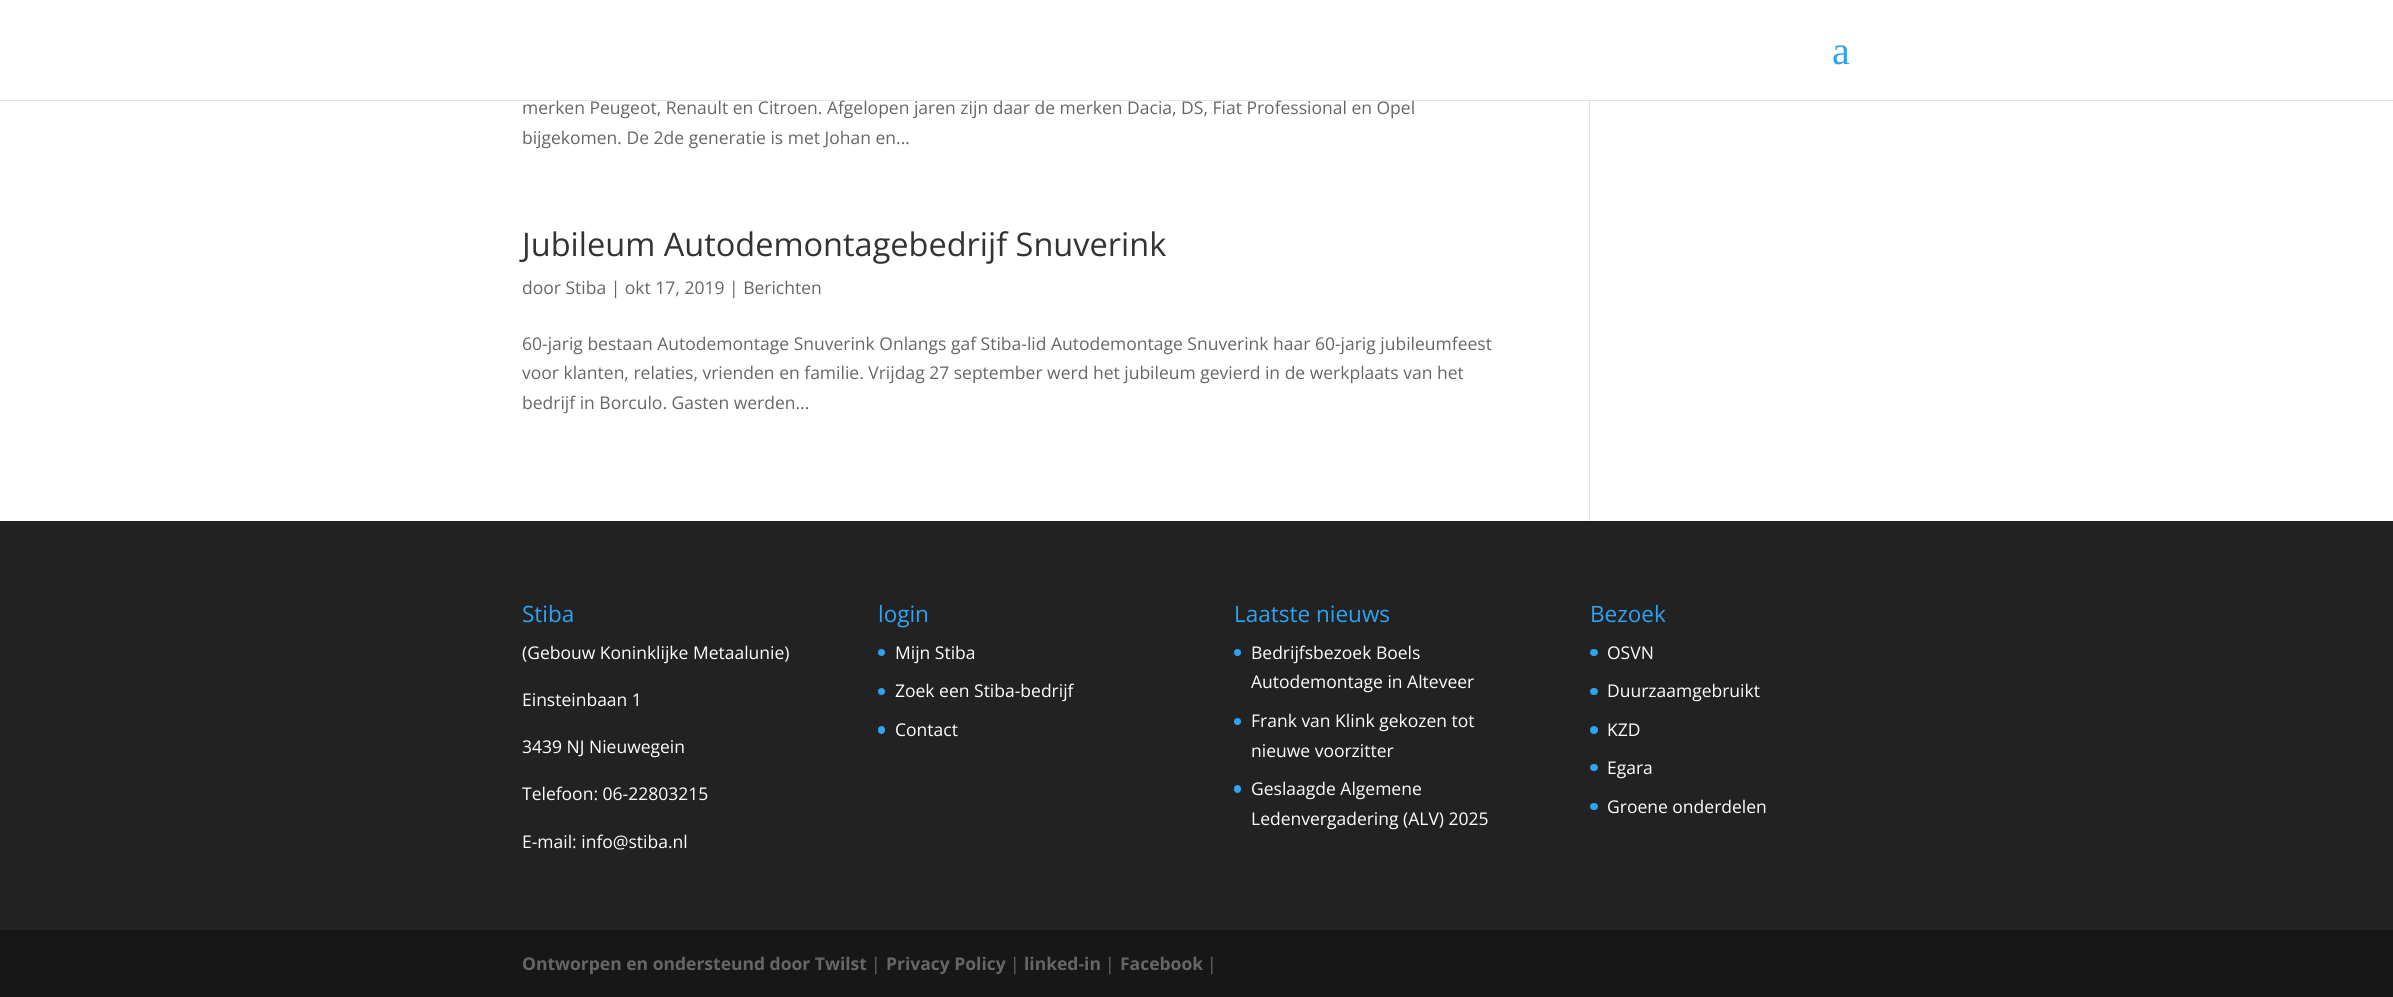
#include <cairo.h>
#include <math.h>
#include <stddef.h>


static void round_rect(cairo_t *cr, double x, double y, double w, double h, double r) {
    cairo_new_sub_path(cr);
    cairo_arc(cr, x + w - r, y + h - r, r, 0, M_PI / 2);
    cairo_arc(cr, x + r, y + h - r, r, M_PI / 2, M_PI);
    cairo_arc(cr, x + r, y + r, r, M_PI, 1.5 * M_PI);
    cairo_arc(cr, x + w - r, y + r, r, 1.5 * M_PI, 2 * M_PI);
    cairo_close_path(cr);
}

int main(void) {
    cairo_surface_t *surface = cairo_image_surface_create(CAIRO_FORMAT_RGB24, 2393, 997);
    cairo_t *cr = cairo_create(surface);
    cairo_font_options_t *options = cairo_font_options_create();
    cairo_font_options_set_hint_metrics(options, CAIRO_HINT_METRICS_OFF);
    cairo_font_options_set_hint_style(options, CAIRO_HINT_STYLE_NONE);
    cairo_set_font_options(cr, options);
    cairo_set_miter_limit(cr, 4);
    cairo_set_source_rgb(cr, 1, 1, 1);
    cairo_paint(cr);
    cairo_set_source_rgb(cr, 0.886, 0.886, 0.886);
    cairo_rectangle(cr, 1589, 100, 1, 421);
    cairo_fill(cr);
    cairo_set_source_rgba(cr, 0, 0, 0, 0.1);
    cairo_new_path(cr);
    cairo_move_to(cr, 0, 100);
    cairo_line_to(cr, 0, 101);
    cairo_line_to(cr, 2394, 101);
    cairo_line_to(cr, 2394, 1);
    cairo_line_to(cr, 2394, 100);
    cairo_close_path(cr);
    cairo_fill(cr);
    cairo_select_font_face(cr, "Liberation Serif", CAIRO_FONT_SLANT_NORMAL, CAIRO_FONT_WEIGHT_NORMAL);
    cairo_set_font_size(cr, 40);
    cairo_set_source_rgb(cr, 0.18, 0.639, 0.949);
    cairo_move_to(cr, 1832, 64);
    cairo_show_text(cr, "a");
    cairo_select_font_face(cr, "Open Sans", CAIRO_FONT_SLANT_NORMAL, CAIRO_FONT_WEIGHT_NORMAL);
    cairo_set_font_size(cr, 17.5);
    cairo_set_source_rgb(cr, 0.4, 0.4, 0.4);
    cairo_move_to(cr, 522, 114);
    cairo_show_text(cr, "merken Peugeot, Renault en Citroen. Afgelopen jaren zijn daar de merken Dacia, DS, Fiat Professional en Opel");
    cairo_move_to(cr, 522, 144);
    cairo_show_text(cr, "bijgekomen. De 2de generatie is met Johan en...");
    cairo_set_font_size(cr, 32.5);
    cairo_set_source_rgb(cr, 0.2, 0.2, 0.2);
    cairo_move_to(cr, 522, 256);
    cairo_show_text(cr, "Jubileum Autodemontagebedrijf Snuverink");
    cairo_set_font_size(cr, 17.5);
    cairo_set_source_rgb(cr, 0.4, 0.4, 0.4);
    cairo_move_to(cr, 522, 294);
    cairo_show_text(cr, "door Stiba | okt 17, 2019 | Berichten");
    cairo_move_to(cr, 522, 350);
    cairo_show_text(cr, "60-jarig bestaan Autodemontage Snuverink Onlangs gaf Stiba-lid Autodemontage Snuverink haar 60-jarig jubileumfeest");
    cairo_move_to(cr, 522, 379);
    cairo_show_text(cr, "voor klanten, relaties, vrienden en familie. Vrijdag 27 september werd het jubileum gevierd in de werkplaats van het");
    cairo_move_to(cr, 522, 409);
    cairo_show_text(cr, "bedrijf in Borculo. Gasten werden...");
    cairo_set_source_rgb(cr, 0.133, 0.133, 0.133);
    cairo_rectangle(cr, 0, 521, 2393, 409);
    cairo_fill(cr);
    cairo_set_font_size(cr, 22.5);
    cairo_set_source_rgb(cr, 0.18, 0.639, 0.949);
    cairo_move_to(cr, 522, 622);
    cairo_show_text(cr, "Stiba");
    cairo_set_font_size(cr, 17.5);
    cairo_set_source_rgb(cr, 1, 1, 1);
    cairo_move_to(cr, 522, 659);
    cairo_show_text(cr, "(Gebouw Koninklijke Metaalunie)");
    cairo_move_to(cr, 522, 706);
    cairo_show_text(cr, "Einsteinbaan 1");
    cairo_move_to(cr, 522, 753);
    cairo_show_text(cr, "3439 NJ Nieuwegein");
    cairo_move_to(cr, 522, 800);
    cairo_show_text(cr, "Telefoon: 06-22803215");
    cairo_move_to(cr, 522, 848);
    cairo_show_text(cr, "E-mail: info@stiba.nl");
    cairo_set_font_size(cr, 22.5);
    cairo_set_source_rgb(cr, 0.18, 0.639, 0.949);
    cairo_move_to(cr, 878, 622);
    cairo_show_text(cr, "login");
    cairo_new_path(cr);
    cairo_arc(cr, 881.5, 652.5, 3.5, 0, 2 * M_PI);
    cairo_fill(cr);
    cairo_set_font_size(cr, 17.5);
    cairo_set_source_rgb(cr, 1, 1, 1);
    cairo_move_to(cr, 895, 659);
    cairo_show_text(cr, "Mijn Stiba");
    cairo_set_source_rgb(cr, 0.18, 0.639, 0.949);
    cairo_new_path(cr);
    cairo_arc(cr, 881.5, 691.5, 3.5, 0, 2 * M_PI);
    cairo_fill(cr);
    cairo_set_source_rgb(cr, 1, 1, 1);
    cairo_move_to(cr, 895, 697);
    cairo_show_text(cr, "Zoek een Stiba-bedrijf");
    cairo_set_source_rgb(cr, 0.18, 0.639, 0.949);
    round_rect(cr, 878, 726, 7, 8, 3.5);
    cairo_fill(cr);
    cairo_set_source_rgb(cr, 1, 1, 1);
    cairo_move_to(cr, 895, 736);
    cairo_show_text(cr, "Contact");
    cairo_set_font_size(cr, 22.5);
    cairo_set_source_rgb(cr, 0.18, 0.639, 0.949);
    cairo_move_to(cr, 1234, 622);
    cairo_show_text(cr, "Laatste nieuws");
    cairo_new_path(cr);
    cairo_arc(cr, 1237.5, 652.5, 3.5, 0, 2 * M_PI);
    cairo_fill(cr);
    cairo_set_font_size(cr, 17.5);
    cairo_set_source_rgb(cr, 1, 1, 1);
    cairo_move_to(cr, 1251, 659);
    cairo_show_text(cr, "Bedrijfsbezoek Boels");
    cairo_move_to(cr, 1251, 688);
    cairo_show_text(cr, "Autodemontage in Alteveer");
    cairo_set_source_rgb(cr, 0.18, 0.639, 0.949);
    cairo_new_path(cr);
    cairo_arc(cr, 1237.5, 721.5, 3.5, 0, 2 * M_PI);
    cairo_fill(cr);
    cairo_set_source_rgb(cr, 1, 1, 1);
    cairo_move_to(cr, 1251, 727);
    cairo_show_text(cr, "Frank van Klink gekozen tot");
    cairo_move_to(cr, 1251, 757);
    cairo_show_text(cr, "nieuwe voorzitter");
    cairo_set_source_rgb(cr, 0.18, 0.639, 0.949);
    round_rect(cr, 1234, 785, 7, 8, 3.5);
    cairo_fill(cr);
    cairo_set_source_rgb(cr, 1, 1, 1);
    cairo_move_to(cr, 1251, 795);
    cairo_show_text(cr, "Geslaagde Algemene");
    cairo_move_to(cr, 1251, 825);
    cairo_show_text(cr, "Ledenvergadering (ALV) 2025");
    cairo_set_font_size(cr, 22.5);
    cairo_set_source_rgb(cr, 0.18, 0.639, 0.949);
    cairo_move_to(cr, 1590, 622);
    cairo_show_text(cr, "Bezoek");
    round_rect(cr, 1590, 649, 8, 7, 3.5);
    cairo_fill(cr);
    cairo_set_font_size(cr, 17.5);
    cairo_set_source_rgb(cr, 1, 1, 1);
    cairo_move_to(cr, 1607, 659);
    cairo_show_text(cr, "OSVN");
    cairo_set_source_rgb(cr, 0.18, 0.639, 0.949);
    round_rect(cr, 1590, 688, 8, 7, 3.5);
    cairo_fill(cr);
    cairo_set_source_rgb(cr, 1, 1, 1);
    cairo_move_to(cr, 1607, 697);
    cairo_show_text(cr, "Duurzaamgebruikt");
    cairo_set_source_rgb(cr, 0.18, 0.639, 0.949);
    cairo_new_path(cr);
    cairo_arc(cr, 1594, 730, 4, 0, 2 * M_PI);
    cairo_fill(cr);
    cairo_set_source_rgb(cr, 1, 1, 1);
    cairo_move_to(cr, 1607, 736);
    cairo_show_text(cr, "KZD");
    cairo_set_source_rgb(cr, 0.18, 0.639, 0.949);
    round_rect(cr, 1590, 764, 8, 7, 3.5);
    cairo_fill(cr);
    cairo_set_source_rgb(cr, 1, 1, 1);
    cairo_move_to(cr, 1607, 774);
    cairo_show_text(cr, "Egara");
    cairo_set_source_rgb(cr, 0.18, 0.639, 0.949);
    round_rect(cr, 1590, 803, 8, 7, 3.5);
    cairo_fill(cr);
    cairo_set_source_rgb(cr, 1, 1, 1);
    cairo_move_to(cr, 1607, 813);
    cairo_show_text(cr, "Groene onderdelen");
    cairo_set_source_rgb(cr, 0.09, 0.09, 0.09);
    cairo_rectangle(cr, 0, 930, 2393, 67);
    cairo_fill(cr);
    cairo_select_font_face(cr, "Open Sans", CAIRO_FONT_SLANT_NORMAL, CAIRO_FONT_WEIGHT_BOLD);
    cairo_set_source_rgb(cr, 0.4, 0.4, 0.4);
    cairo_move_to(cr, 522, 970);
    cairo_show_text(cr, "Ontworpen en ondersteund door Twilst");
    cairo_select_font_face(cr, "Open Sans", CAIRO_FONT_SLANT_NORMAL, CAIRO_FONT_WEIGHT_NORMAL);
    cairo_move_to(cr, 871, 970);
    cairo_show_text(cr, "|");
    cairo_select_font_face(cr, "Open Sans", CAIRO_FONT_SLANT_NORMAL, CAIRO_FONT_WEIGHT_BOLD);
    cairo_move_to(cr, 886, 970);
    cairo_show_text(cr, "Privacy Policy");
    cairo_select_font_face(cr, "Open Sans", CAIRO_FONT_SLANT_NORMAL, CAIRO_FONT_WEIGHT_NORMAL);
    cairo_move_to(cr, 1010, 970);
    cairo_show_text(cr, "|");
    cairo_select_font_face(cr, "Open Sans", CAIRO_FONT_SLANT_NORMAL, CAIRO_FONT_WEIGHT_BOLD);
    cairo_move_to(cr, 1024, 970);
    cairo_show_text(cr, "linked-in");
    cairo_select_font_face(cr, "Open Sans", CAIRO_FONT_SLANT_NORMAL, CAIRO_FONT_WEIGHT_NORMAL);
    cairo_move_to(cr, 1105, 970);
    cairo_show_text(cr, "|");
    cairo_select_font_face(cr, "Open Sans", CAIRO_FONT_SLANT_NORMAL, CAIRO_FONT_WEIGHT_BOLD);
    cairo_move_to(cr, 1120, 970);
    cairo_show_text(cr, "Facebook");
    cairo_select_font_face(cr, "Open Sans", CAIRO_FONT_SLANT_NORMAL, CAIRO_FONT_WEIGHT_NORMAL);
    cairo_move_to(cr, 1207, 970);
    cairo_show_text(cr, "|");
    cairo_surface_write_to_png(surface, "page.png");
    cairo_font_options_destroy(options);
    cairo_destroy(cr);
    cairo_surface_destroy(surface);
    return 0;
}
